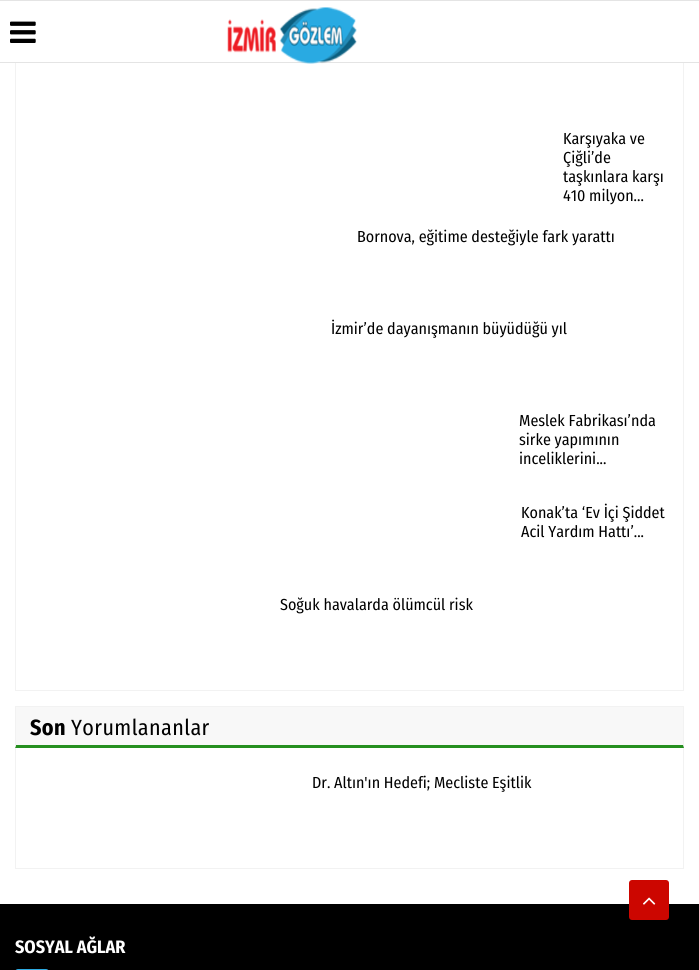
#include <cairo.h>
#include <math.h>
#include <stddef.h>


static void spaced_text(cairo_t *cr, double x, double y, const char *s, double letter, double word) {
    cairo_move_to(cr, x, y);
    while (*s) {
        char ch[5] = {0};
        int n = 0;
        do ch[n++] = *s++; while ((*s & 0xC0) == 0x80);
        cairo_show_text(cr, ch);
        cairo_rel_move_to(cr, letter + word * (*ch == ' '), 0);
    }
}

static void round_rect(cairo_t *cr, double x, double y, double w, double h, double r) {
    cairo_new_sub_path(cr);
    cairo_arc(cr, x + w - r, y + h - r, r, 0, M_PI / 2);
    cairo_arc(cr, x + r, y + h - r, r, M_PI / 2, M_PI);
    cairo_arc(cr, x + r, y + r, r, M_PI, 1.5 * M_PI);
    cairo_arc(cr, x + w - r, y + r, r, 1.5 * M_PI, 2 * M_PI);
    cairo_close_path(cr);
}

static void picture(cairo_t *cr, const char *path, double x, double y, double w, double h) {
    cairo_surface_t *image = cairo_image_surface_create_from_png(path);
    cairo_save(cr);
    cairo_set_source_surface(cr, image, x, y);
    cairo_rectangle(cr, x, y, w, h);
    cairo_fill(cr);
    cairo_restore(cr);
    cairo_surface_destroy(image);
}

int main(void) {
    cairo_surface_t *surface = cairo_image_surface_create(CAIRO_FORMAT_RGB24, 699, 970);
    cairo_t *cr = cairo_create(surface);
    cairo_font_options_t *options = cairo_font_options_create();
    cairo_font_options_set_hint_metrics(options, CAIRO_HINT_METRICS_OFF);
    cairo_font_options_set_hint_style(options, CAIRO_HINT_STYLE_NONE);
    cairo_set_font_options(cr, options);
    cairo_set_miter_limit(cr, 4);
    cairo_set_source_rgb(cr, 1, 1, 1);
    cairo_paint(cr);
    cairo_set_source_rgb(cr, 0.894, 0.894, 0.894);
    cairo_rectangle(cr, 0, 0, 699, 1);
    cairo_fill(cr);
    cairo_rectangle(cr, 0, 62, 699, 1);
    cairo_fill(cr);
    picture(cr, "img1.png", 10, 21, 26, 22);
    picture(cr, "img2.png", 227, 7, 130, 57);
    cairo_set_source_rgb(cr, 0.949, 0.949, 0.949);
    cairo_rectangle(cr, 683, 63, 1, 628);
    cairo_fill(cr);
    cairo_rectangle(cr, 15, 690, 669, 1);
    cairo_fill(cr);
    cairo_rectangle(cr, 15, 63, 1, 628);
    cairo_fill(cr);
    cairo_select_font_face(cr, "Fira Sans Condensed", CAIRO_FONT_SLANT_NORMAL, CAIRO_FONT_WEIGHT_NORMAL);
    cairo_set_font_size(cr, 16);
    cairo_set_source_rgb(cr, 0, 0, 0);
    cairo_move_to(cr, 563, 144);
    cairo_show_text(cr, "Karşıyaka ve");
    cairo_move_to(cr, 563, 163);
    cairo_show_text(cr, "Çiğli’de");
    cairo_move_to(cr, 563, 182);
    cairo_show_text(cr, "taşkınlara karşı");
    cairo_move_to(cr, 563, 201);
    cairo_show_text(cr, "410 milyon...");
    cairo_move_to(cr, 357, 242);
    cairo_show_text(cr, "Bornova, eğitime desteğiyle fark yarattı");
    cairo_move_to(cr, 331, 334);
    cairo_show_text(cr, "İzmir’de dayanışmanın büyüdüğü yıl");
    cairo_move_to(cr, 519, 426);
    cairo_show_text(cr, "Meslek Fabrikası’nda");
    cairo_move_to(cr, 519, 445);
    cairo_show_text(cr, "sirke yapımının");
    cairo_move_to(cr, 519, 464);
    cairo_show_text(cr, "inceliklerini...");
    cairo_move_to(cr, 521, 518);
    cairo_show_text(cr, "Konak’ta ‘Ev İçi Şiddet");
    cairo_move_to(cr, 521, 537);
    cairo_show_text(cr, "Acil Yardım Hattı’...");
    cairo_move_to(cr, 280, 610);
    cairo_show_text(cr, "Soğuk havalarda ölümcül risk");
    cairo_set_source_rgb(cr, 0.969, 0.969, 0.969);
    cairo_rectangle(cr, 16, 707, 667, 38);
    cairo_fill(cr);
    cairo_set_source_rgb(cr, 0.949, 0.949, 0.949);
    cairo_rectangle(cr, 15, 706, 669, 1);
    cairo_fill(cr);
    cairo_new_path(cr);
    cairo_move_to(cr, 684, 706);
    cairo_line_to(cr, 684, 748);
    cairo_line_to(cr, 683, 745);
    cairo_line_to(cr, 683, 707);
    cairo_close_path(cr);
    cairo_fill(cr);
    cairo_set_source_rgb(cr, 0.145, 0.561, 0.122);
    cairo_new_path(cr);
    cairo_move_to(cr, 684, 748);
    cairo_line_to(cr, 15, 748);
    cairo_line_to(cr, 16, 745);
    cairo_line_to(cr, 683, 745);
    cairo_close_path(cr);
    cairo_fill(cr);
    cairo_set_source_rgb(cr, 0.949, 0.949, 0.949);
    cairo_new_path(cr);
    cairo_move_to(cr, 15, 748);
    cairo_line_to(cr, 15, 706);
    cairo_line_to(cr, 16, 707);
    cairo_line_to(cr, 16, 745);
    cairo_close_path(cr);
    cairo_fill(cr);
    cairo_select_font_face(cr, "Fira Sans Condensed", CAIRO_FONT_SLANT_NORMAL, CAIRO_FONT_WEIGHT_BOLD);
    cairo_set_font_size(cr, 22);
    cairo_set_source_rgb(cr, 0, 0, 0);
    spaced_text(cr, 30, 735, "Son", 0.4, 0);
    cairo_select_font_face(cr, "Fira Sans Condensed", CAIRO_FONT_SLANT_NORMAL, CAIRO_FONT_WEIGHT_NORMAL);
    spaced_text(cr, 71, 735, "Yorumlananlar", 0.4, 0);
    cairo_set_source_rgb(cr, 0.949, 0.949, 0.949);
    cairo_rectangle(cr, 683, 748, 1, 121);
    cairo_fill(cr);
    cairo_rectangle(cr, 15, 868, 669, 1);
    cairo_fill(cr);
    cairo_rectangle(cr, 15, 748, 1, 121);
    cairo_fill(cr);
    cairo_set_font_size(cr, 16);
    cairo_set_source_rgb(cr, 0, 0, 0);
    cairo_move_to(cr, 312, 788);
    cairo_show_text(cr, "Dr. Altın'ın Hedefi; Mecliste Eşitlik");
    cairo_rectangle(cr, 0, 904, 699, 66);
    cairo_fill(cr);
    cairo_select_font_face(cr, "Fira Sans Condensed", CAIRO_FONT_SLANT_NORMAL, CAIRO_FONT_WEIGHT_BOLD);
    cairo_set_font_size(cr, 18);
    cairo_set_source_rgb(cr, 1, 1, 1);
    cairo_move_to(cr, 15, 953);
    cairo_show_text(cr, "SOSYAL AĞLAR");
    cairo_set_source_rgb(cr, 0.176, 0.667, 0.882);
    round_rect(cr, 15, 969, 34, 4, 3);
    cairo_fill(cr);
    cairo_set_source_rgb(cr, 0.8, 0.027, 0);
    round_rect(cr, 629, 880, 40, 40, 3);
    cairo_fill(cr);
    picture(cr, "img3.png", 643, 897, 13, 8);
    cairo_surface_write_to_png(surface, "page.png");
    cairo_font_options_destroy(options);
    cairo_destroy(cr);
    cairo_surface_destroy(surface);
    return 0;
}
